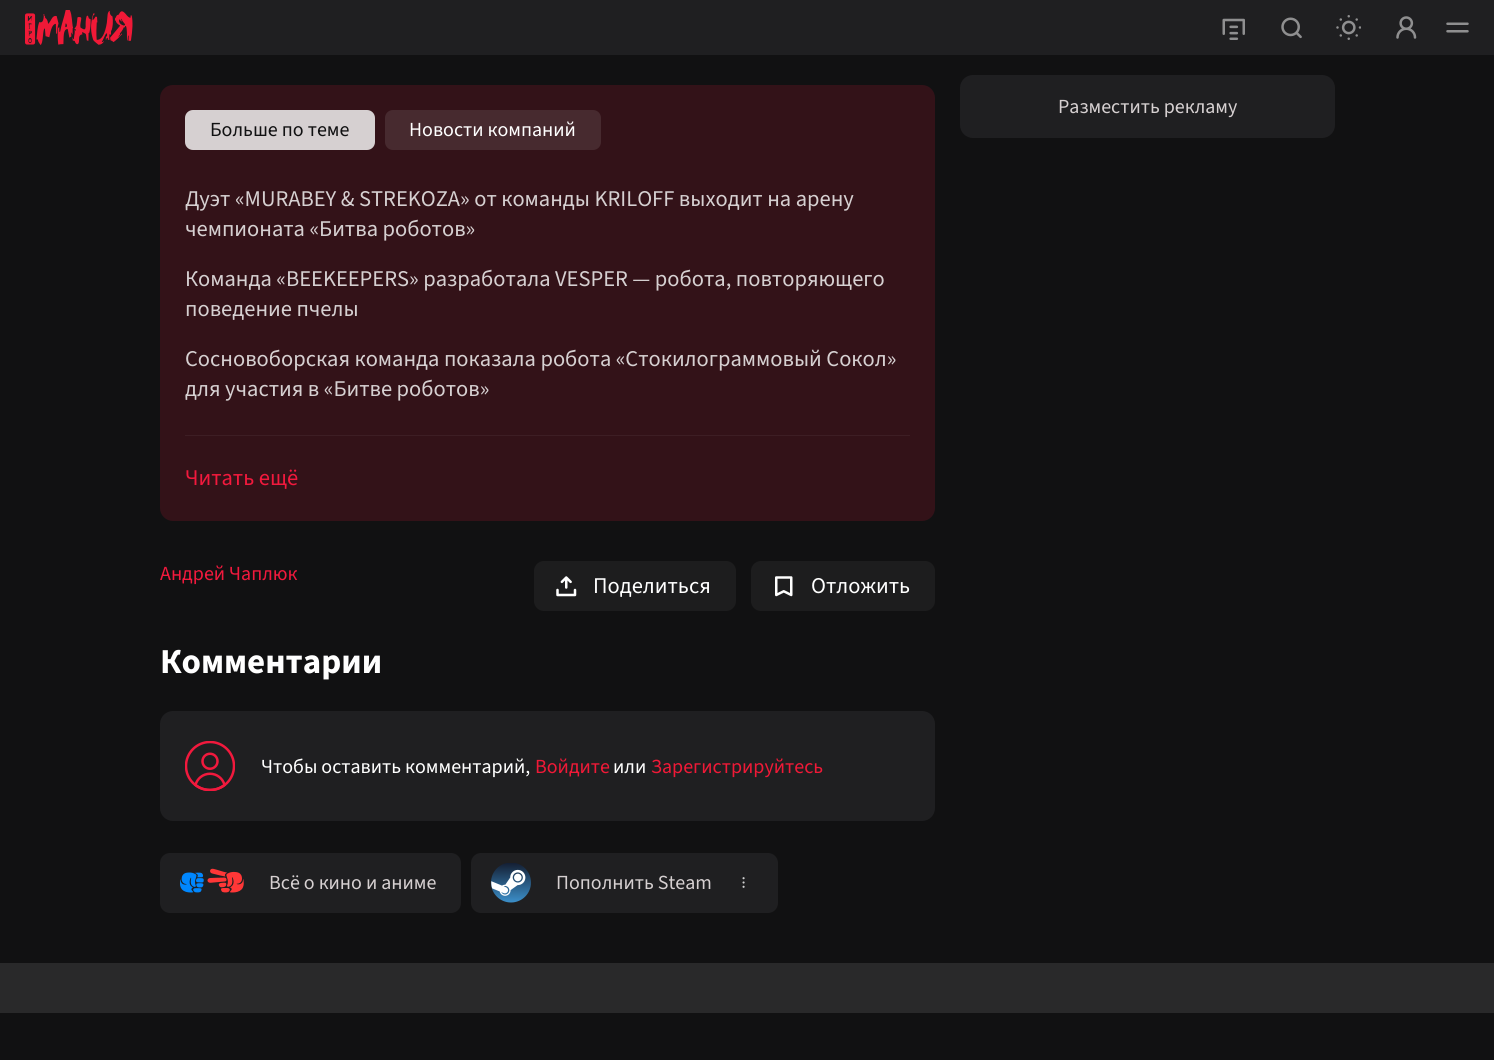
#include <cairo.h>
#include <math.h>
#include <stddef.h>


static void round_rect(cairo_t *cr, double x, double y, double w, double h, double r) {
    cairo_new_sub_path(cr);
    cairo_arc(cr, x + w - r, y + h - r, r, 0, M_PI / 2);
    cairo_arc(cr, x + r, y + h - r, r, M_PI / 2, M_PI);
    cairo_arc(cr, x + r, y + r, r, M_PI, 1.5 * M_PI);
    cairo_arc(cr, x + w - r, y + r, r, 1.5 * M_PI, 2 * M_PI);
    cairo_close_path(cr);
}

static void picture(cairo_t *cr, const char *path, double x, double y, double w, double h) {
    cairo_surface_t *image = cairo_image_surface_create_from_png(path);
    cairo_save(cr);
    cairo_set_source_surface(cr, image, x, y);
    cairo_rectangle(cr, x, y, w, h);
    cairo_fill(cr);
    cairo_restore(cr);
    cairo_surface_destroy(image);
}

int main(void) {
    cairo_surface_t *surface = cairo_image_surface_create(CAIRO_FORMAT_RGB24, 1494, 1060);
    cairo_t *cr = cairo_create(surface);
    cairo_font_options_t *options = cairo_font_options_create();
    cairo_font_options_set_hint_metrics(options, CAIRO_HINT_METRICS_OFF);
    cairo_font_options_set_hint_style(options, CAIRO_HINT_STYLE_NONE);
    cairo_set_font_options(cr, options);
    cairo_set_miter_limit(cr, 4);
    cairo_set_source_rgb(cr, 0.067, 0.067, 0.071);
    cairo_paint(cr);
    cairo_set_source_rgb(cr, 0.122, 0.122, 0.129);
    cairo_rectangle(cr, 0, 0, 1494, 55);
    cairo_fill(cr);
    picture(cr, "img1.png", 25, 10, 108, 35);
    picture(cr, "img2.png", 1222, 18, 23, 22);
    picture(cr, "img3.png", 1281, 17, 21, 22);
    picture(cr, "img4.png", 1336, 15, 25, 25);
    picture(cr, "img5.png", 1396, 16, 21, 23);
    picture(cr, "img6.png", 1446, 22, 23, 11);
    round_rect(cr, 960, 75, 375, 63, 13);
    cairo_fill(cr);
    cairo_select_font_face(cr, "Source Sans 3", CAIRO_FONT_SLANT_NORMAL, CAIRO_FONT_WEIGHT_NORMAL);
    cairo_set_font_size(cr, 20);
    cairo_set_source_rgb(cr, 0.839, 0.816, 0.82);
    cairo_move_to(cr, 1058, 113);
    cairo_show_text(cr, "Разместить рекламу");
    cairo_set_source_rgb(cr, 0.2, 0.071, 0.094);
    round_rect(cr, 160, 85, 775, 436, 13);
    cairo_fill(cr);
    cairo_set_source_rgb(cr, 0.839, 0.816, 0.82);
    round_rect(cr, 185, 110, 190, 40, 8);
    cairo_fill(cr);
    cairo_set_source_rgb(cr, 0.067, 0.067, 0.071);
    cairo_move_to(cr, 210, 136);
    cairo_show_text(cr, "Больше по теме");
    cairo_set_source_rgb(cr, 0.278, 0.165, 0.184);
    round_rect(cr, 385, 110, 216, 40, 8);
    cairo_fill(cr);
    cairo_set_source_rgb(cr, 1, 1, 1);
    cairo_move_to(cr, 409, 136);
    cairo_show_text(cr, "Новости компаний");
    cairo_set_font_size(cr, 22.5);
    cairo_set_source_rgb(cr, 0.839, 0.816, 0.82);
    cairo_move_to(cr, 185, 206);
    cairo_show_text(cr, "Дуэт «MURABEY & STREKOZA» от команды KRILOFF выходит на арену");
    cairo_move_to(cr, 185, 236);
    cairo_show_text(cr, "чемпионата «Битва роботов»");
    cairo_move_to(cr, 185, 286);
    cairo_show_text(cr, "Команда «BEEKEEPERS» разработала VESPER — робота, повторяющего");
    cairo_move_to(cr, 185, 316);
    cairo_show_text(cr, "поведение пчелы");
    cairo_move_to(cr, 185, 366);
    cairo_show_text(cr, "Сосновоборская команда показала робота «Стокилограммовый Сокол»");
    cairo_move_to(cr, 185, 396);
    cairo_show_text(cr, "для участия в «Битве роботов»");
    cairo_set_source_rgb(cr, 0.239, 0.118, 0.141);
    cairo_rectangle(cr, 185, 435, 725, 1);
    cairo_fill(cr);
    cairo_set_source_rgb(cr, 0.949, 0.098, 0.239);
    cairo_move_to(cr, 185, 485);
    cairo_show_text(cr, "Читать ещё");
    cairo_set_font_size(cr, 20);
    cairo_move_to(cr, 160, 580);
    cairo_show_text(cr, "Андрей Чаплюк");
    cairo_set_source_rgb(cr, 0.114, 0.114, 0.118);
    round_rect(cr, 534, 561, 202, 50, 10);
    cairo_fill(cr);
    picture(cr, "img7.png", 556, 576, 21, 21);
    cairo_set_font_size(cr, 22.5);
    cairo_set_source_rgb(cr, 1, 1, 1);
    cairo_move_to(cr, 593, 593);
    cairo_show_text(cr, "Поделиться");
    cairo_set_source_rgb(cr, 0.114, 0.114, 0.118);
    round_rect(cr, 751, 561, 184, 50, 10);
    cairo_fill(cr);
    picture(cr, "img8.png", 775, 576, 18, 21);
    cairo_set_source_rgb(cr, 1, 1, 1);
    cairo_move_to(cr, 811, 593);
    cairo_show_text(cr, "Отложить");
    cairo_select_font_face(cr, "Source Sans 3", CAIRO_FONT_SLANT_NORMAL, CAIRO_FONT_WEIGHT_BOLD);
    cairo_set_font_size(cr, 35);
    cairo_move_to(cr, 160, 673);
    cairo_show_text(cr, "Комментарии");
    cairo_set_source_rgb(cr, 0.122, 0.122, 0.129);
    round_rect(cr, 160, 711, 775, 110, 13);
    cairo_fill(cr);
    picture(cr, "img9.png", 185, 741, 50, 50);
    cairo_select_font_face(cr, "Source Sans 3", CAIRO_FONT_SLANT_NORMAL, CAIRO_FONT_WEIGHT_NORMAL);
    cairo_set_font_size(cr, 20);
    cairo_set_source_rgb(cr, 1, 1, 1);
    cairo_move_to(cr, 261, 773);
    cairo_show_text(cr, "Чтобы оставить комментарий,");
    cairo_set_source_rgb(cr, 0.941, 0.098, 0.216);
    cairo_move_to(cr, 535, 773);
    cairo_show_text(cr, "Войдите");
    cairo_set_source_rgb(cr, 1, 1, 1);
    cairo_move_to(cr, 613, 773);
    cairo_show_text(cr, "или");
    cairo_set_source_rgb(cr, 0.941, 0.098, 0.216);
    cairo_move_to(cr, 651, 773);
    cairo_show_text(cr, "Зарегистрируйтесь");
    cairo_set_source_rgb(cr, 0.122, 0.122, 0.129);
    round_rect(cr, 160, 853, 301, 60, 10);
    cairo_fill(cr);
    picture(cr, "img10.png", 180, 868, 64, 25);
    cairo_set_source_rgb(cr, 0.839, 0.816, 0.82);
    cairo_move_to(cr, 269, 889);
    cairo_show_text(cr, "Всё о кино и аниме");
    cairo_set_source_rgb(cr, 0.122, 0.122, 0.129);
    round_rect(cr, 471, 853, 307, 60, 10);
    cairo_fill(cr);
    picture(cr, "img11.png", 491, 863, 40, 40);
    cairo_set_source_rgb(cr, 0.839, 0.816, 0.82);
    cairo_move_to(cr, 556, 889);
    cairo_show_text(cr, "Пополнить Steam");
    picture(cr, "img12.png", 742, 877, 3, 11);
    cairo_set_source_rgb(cr, 0.161, 0.161, 0.165);
    cairo_rectangle(cr, 0, 963, 1494, 50);
    cairo_fill(cr);
    cairo_surface_write_to_png(surface, "page.png");
    cairo_font_options_destroy(options);
    cairo_destroy(cr);
    cairo_surface_destroy(surface);
    return 0;
}
